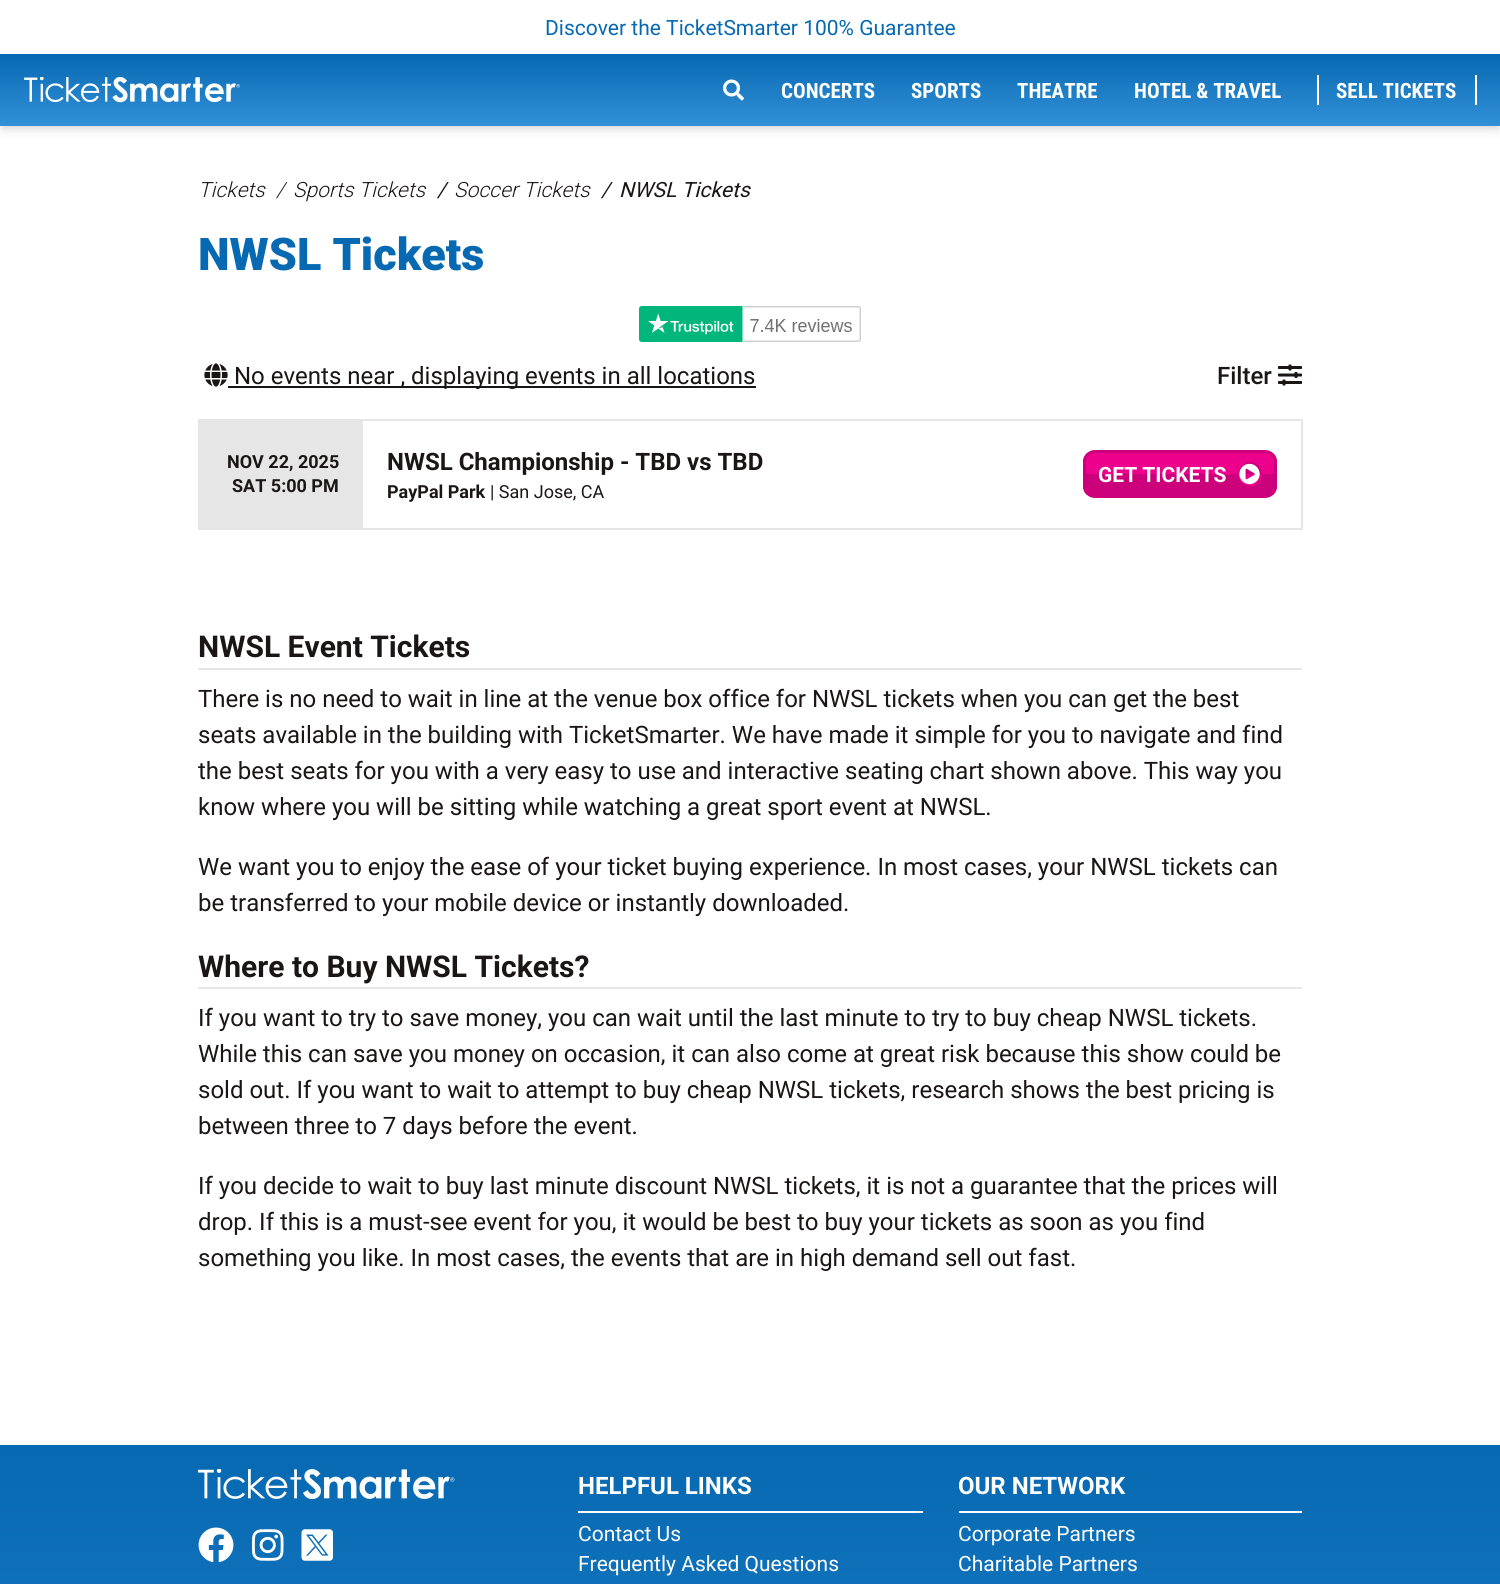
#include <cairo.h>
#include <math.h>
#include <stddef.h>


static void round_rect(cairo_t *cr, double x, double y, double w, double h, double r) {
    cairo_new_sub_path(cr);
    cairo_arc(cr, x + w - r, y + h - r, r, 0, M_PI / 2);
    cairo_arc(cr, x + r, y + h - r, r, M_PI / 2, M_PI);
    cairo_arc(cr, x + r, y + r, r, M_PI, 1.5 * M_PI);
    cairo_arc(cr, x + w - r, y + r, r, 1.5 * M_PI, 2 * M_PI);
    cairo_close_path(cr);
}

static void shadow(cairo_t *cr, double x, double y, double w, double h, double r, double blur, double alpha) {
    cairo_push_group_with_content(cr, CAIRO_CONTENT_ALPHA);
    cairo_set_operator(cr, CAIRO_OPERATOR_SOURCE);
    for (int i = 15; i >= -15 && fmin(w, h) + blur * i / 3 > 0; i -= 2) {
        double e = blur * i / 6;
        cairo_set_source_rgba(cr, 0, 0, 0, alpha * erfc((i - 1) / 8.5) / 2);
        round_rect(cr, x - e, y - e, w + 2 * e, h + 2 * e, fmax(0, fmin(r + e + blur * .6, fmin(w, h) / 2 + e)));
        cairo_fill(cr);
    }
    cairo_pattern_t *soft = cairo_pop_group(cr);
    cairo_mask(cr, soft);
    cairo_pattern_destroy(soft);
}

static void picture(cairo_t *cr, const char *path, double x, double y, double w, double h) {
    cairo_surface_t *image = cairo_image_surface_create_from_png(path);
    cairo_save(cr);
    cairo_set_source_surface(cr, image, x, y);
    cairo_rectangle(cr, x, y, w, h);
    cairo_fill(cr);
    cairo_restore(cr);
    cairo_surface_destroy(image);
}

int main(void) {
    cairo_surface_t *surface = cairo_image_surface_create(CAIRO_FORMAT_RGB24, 1500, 1584);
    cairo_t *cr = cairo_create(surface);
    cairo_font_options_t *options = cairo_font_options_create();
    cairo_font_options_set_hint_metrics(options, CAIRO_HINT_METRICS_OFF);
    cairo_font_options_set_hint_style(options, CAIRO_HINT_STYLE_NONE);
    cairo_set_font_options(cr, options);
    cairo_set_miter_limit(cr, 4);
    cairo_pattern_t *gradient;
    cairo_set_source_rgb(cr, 1, 1, 1);
    cairo_paint(cr);
    cairo_select_font_face(cr, "Roboto", CAIRO_FONT_SLANT_NORMAL, CAIRO_FONT_WEIGHT_NORMAL);
    cairo_set_font_size(cr, 21);
    cairo_set_source_rgb(cr, 0.027, 0.412, 0.698);
    cairo_move_to(cr, 545, 35);
    cairo_show_text(cr, "Discover the TicketSmarter 100% Guarantee");
    cairo_set_source_rgb(cr, 0, 0, 0);
    shadow(cr, 3, 60, 1494, 66, 0, 3, 0.1);
    shadow(cr, 2, 62, 1497, 69, 0, 4.5, 0.1);
    gradient = cairo_pattern_create_linear(750, 54, 750, 126);
    cairo_pattern_add_color_stop_rgba(gradient, 0, 0.027, 0.412, 0.698, 1);
    cairo_pattern_add_color_stop_rgba(gradient, 1, 0.196, 0.565, 0.843, 1);
    cairo_set_source(cr, gradient);
    cairo_pattern_destroy(gradient);
    cairo_rectangle(cr, 0, 54, 1500, 72);
    cairo_fill(cr);
    picture(cr, "img1.png", 24, 77, 216, 26);
    picture(cr, "img2.png", 723, 79, 21, 22);
    cairo_select_font_face(cr, "Roboto Condensed", CAIRO_FONT_SLANT_NORMAL, CAIRO_FONT_WEIGHT_BOLD);
    cairo_set_source_rgb(cr, 1, 1, 1);
    cairo_move_to(cr, 781, 98);
    cairo_show_text(cr, "CONCERTS");
    cairo_move_to(cr, 911, 98);
    cairo_show_text(cr, "SPORTS");
    cairo_move_to(cr, 1017, 98);
    cairo_show_text(cr, "THEATRE");
    cairo_move_to(cr, 1134, 98);
    cairo_show_text(cr, "HOTEL & TRAVEL");
    cairo_rectangle(cr, 1475, 75, 2, 30);
    cairo_fill(cr);
    cairo_rectangle(cr, 1317, 75, 2, 30);
    cairo_fill(cr);
    cairo_move_to(cr, 1336, 98);
    cairo_show_text(cr, "SELL TICKETS");
    cairo_select_font_face(cr, "Roboto Light", CAIRO_FONT_SLANT_ITALIC, CAIRO_FONT_WEIGHT_NORMAL);
    cairo_set_source_rgb(cr, 0.106, 0.086, 0.086);
    cairo_move_to(cr, 198, 197);
    cairo_show_text(cr, "Tickets");
    cairo_move_to(cr, 276, 197);
    cairo_show_text(cr, "/");
    cairo_move_to(cr, 293, 197);
    cairo_show_text(cr, "Sports Tickets");
    cairo_select_font_face(cr, "Roboto", CAIRO_FONT_SLANT_ITALIC, CAIRO_FONT_WEIGHT_NORMAL);
    cairo_move_to(cr, 437, 197);
    cairo_show_text(cr, "/");
    cairo_select_font_face(cr, "Roboto Light", CAIRO_FONT_SLANT_ITALIC, CAIRO_FONT_WEIGHT_NORMAL);
    cairo_move_to(cr, 454, 197);
    cairo_show_text(cr, "Soccer Tickets");
    cairo_select_font_face(cr, "Roboto", CAIRO_FONT_SLANT_ITALIC, CAIRO_FONT_WEIGHT_NORMAL);
    cairo_move_to(cr, 601, 197);
    cairo_show_text(cr, "/");
    cairo_move_to(cr, 619, 197);
    cairo_show_text(cr, "NWSL Tickets");
    cairo_select_font_face(cr, "Roboto Black", CAIRO_FONT_SLANT_NORMAL, CAIRO_FONT_WEIGHT_NORMAL);
    cairo_set_font_size(cr, 45);
    cairo_set_source_rgb(cr, 0.027, 0.412, 0.698);
    cairo_move_to(cr, 198, 270);
    cairo_show_text(cr, "NWSL Tickets");
    picture(cr, "img3.png", 639, 306, 222, 36);
    picture(cr, "img4.png", 204, 363, 24, 24);
    cairo_set_source_rgb(cr, 0.106, 0.086, 0.086);
    cairo_rectangle(cr, 228, 386, 528, 2);
    cairo_fill(cr);
    cairo_select_font_face(cr, "Roboto", CAIRO_FONT_SLANT_NORMAL, CAIRO_FONT_WEIGHT_NORMAL);
    cairo_set_font_size(cr, 24);
    cairo_move_to(cr, 234, 384);
    cairo_show_text(cr, "No events near , displaying events in all locations");
    cairo_set_source_rgb(cr, 0.902, 0.902, 0.902);
    cairo_rectangle(cr, 198, 419, 1104, 2);
    cairo_fill(cr);
    cairo_rectangle(cr, 1301, 420, 2, 110);
    cairo_fill(cr);
    cairo_rectangle(cr, 198, 528, 1104, 2);
    cairo_fill(cr);
    cairo_rectangle(cr, 198, 421, 165, 107);
    cairo_fill(cr);
    cairo_select_font_face(cr, "Roboto", CAIRO_FONT_SLANT_NORMAL, CAIRO_FONT_WEIGHT_BOLD);
    cairo_set_font_size(cr, 18);
    cairo_set_source_rgb(cr, 0.106, 0.086, 0.086);
    cairo_move_to(cr, 227, 468);
    cairo_show_text(cr, "NOV 22, 2025");
    cairo_move_to(cr, 232, 492);
    cairo_show_text(cr, "SAT 5:00 PM");
    cairo_set_font_size(cr, 24);
    cairo_move_to(cr, 387, 470);
    cairo_show_text(cr, "NWSL Championship - TBD vs TBD");
    cairo_set_font_size(cr, 18);
    cairo_move_to(cr, 387, 498);
    cairo_show_text(cr, "PayPal Park");
    cairo_select_font_face(cr, "Roboto", CAIRO_FONT_SLANT_NORMAL, CAIRO_FONT_WEIGHT_NORMAL);
    cairo_move_to(cr, 490, 498);
    cairo_show_text(cr, "| San Jose, CA");
    cairo_save(cr);
    round_rect(cr, 1083, 450, 194, 48, 12);
    cairo_clip(cr);
    cairo_set_source_rgb(cr, 0.925, 0, 0.549);
    cairo_rectangle(cr, 1083, 453, 194, 21);
    cairo_fill(cr);
    cairo_set_source_rgb(cr, 0.8, 0, 0.478);
    cairo_rectangle(cr, 1083, 474, 194, 21);
    cairo_fill(cr);
    cairo_restore(cr);
    round_rect(cr, 1084.5, 451.5, 191, 45, 10.5);
    cairo_set_source_rgb(cr, 0.8, 0, 0.478);
    cairo_set_line_width(cr, 3);
    cairo_stroke(cr);
    cairo_select_font_face(cr, "Roboto", CAIRO_FONT_SLANT_NORMAL, CAIRO_FONT_WEIGHT_BOLD);
    cairo_set_font_size(cr, 21);
    cairo_set_source_rgb(cr, 1, 1, 1);
    cairo_move_to(cr, 1098, 482);
    cairo_show_text(cr, "GET TICKETS");
    cairo_set_source_rgb(cr, 0.925, 0, 0.549);
    cairo_new_path(cr);
    cairo_move_to(cr, 1238, 474);
    cairo_line_to(cr, 1262, 474);
    cairo_curve_to(cr, 1262, 480.5, 1256.5, 486, 1250, 486);
    cairo_curve_to(cr, 1243.5, 486, 1238, 480.5, 1238, 474);
    cairo_close_path(cr);
    cairo_fill(cr);
    cairo_set_source_rgb(cr, 0.8, 0, 0.478);
    cairo_new_path(cr);
    cairo_move_to(cr, 1250, 462);
    cairo_curve_to(cr, 1256.5, 462, 1262, 467.5, 1262, 474);
    cairo_line_to(cr, 1238, 474);
    cairo_curve_to(cr, 1238, 467.5, 1243.5, 462, 1250, 462);
    cairo_close_path(cr);
    cairo_fill(cr);
    picture(cr, "img5.png", 1239, 463, 21, 22);
    cairo_select_font_face(cr, "Roboto Medium", CAIRO_FONT_SLANT_NORMAL, CAIRO_FONT_WEIGHT_NORMAL);
    cairo_set_font_size(cr, 24);
    cairo_set_source_rgb(cr, 0.106, 0.086, 0.086);
    cairo_move_to(cr, 1217, 384);
    cairo_show_text(cr, "Filter");
    picture(cr, "img6.png", 1278, 364, 24, 22);
    cairo_set_source_rgb(cr, 0.902, 0.902, 0.902);
    cairo_rectangle(cr, 198, 668, 1104, 2);
    cairo_fill(cr);
    cairo_select_font_face(cr, "Roboto", CAIRO_FONT_SLANT_NORMAL, CAIRO_FONT_WEIGHT_BOLD);
    cairo_set_font_size(cr, 30);
    cairo_set_source_rgb(cr, 0.106, 0.086, 0.086);
    cairo_move_to(cr, 198, 657);
    cairo_show_text(cr, "NWSL Event Tickets");
    cairo_select_font_face(cr, "Roboto", CAIRO_FONT_SLANT_NORMAL, CAIRO_FONT_WEIGHT_NORMAL);
    cairo_set_font_size(cr, 24);
    cairo_move_to(cr, 198, 707);
    cairo_show_text(cr, "There is no need to wait in line at the venue box office for NWSL tickets when you can get the best");
    cairo_move_to(cr, 198, 743);
    cairo_show_text(cr, "seats available in the building with TicketSmarter. We have made it simple for you to navigate and find");
    cairo_move_to(cr, 198, 779);
    cairo_show_text(cr, "the best seats for you with a very easy to use and interactive seating chart shown above. This way you");
    cairo_move_to(cr, 198, 815);
    cairo_show_text(cr, "know where you will be sitting while watching a great sport event at NWSL.");
    cairo_move_to(cr, 198, 875);
    cairo_show_text(cr, "We want you to enjoy the ease of your ticket buying experience. In most cases, your NWSL tickets can");
    cairo_move_to(cr, 198, 911);
    cairo_show_text(cr, "be transferred to your mobile device or instantly downloaded.");
    cairo_set_source_rgb(cr, 0.902, 0.902, 0.902);
    cairo_rectangle(cr, 198, 987, 1104, 2);
    cairo_fill(cr);
    cairo_select_font_face(cr, "Roboto", CAIRO_FONT_SLANT_NORMAL, CAIRO_FONT_WEIGHT_BOLD);
    cairo_set_font_size(cr, 30);
    cairo_set_source_rgb(cr, 0.106, 0.086, 0.086);
    cairo_move_to(cr, 198, 977);
    cairo_show_text(cr, "Where to Buy NWSL Tickets?");
    cairo_select_font_face(cr, "Roboto", CAIRO_FONT_SLANT_NORMAL, CAIRO_FONT_WEIGHT_NORMAL);
    cairo_set_font_size(cr, 24);
    cairo_move_to(cr, 198, 1026);
    cairo_show_text(cr, "If you want to try to save money, you can wait until the last minute to try to buy cheap NWSL tickets.");
    cairo_move_to(cr, 198, 1062);
    cairo_show_text(cr, "While this can save you money on occasion, it can also come at great risk because this show could be");
    cairo_move_to(cr, 198, 1098);
    cairo_show_text(cr, "sold out. If you want to wait to attempt to buy cheap NWSL tickets, research shows the best pricing is");
    cairo_move_to(cr, 198, 1134);
    cairo_show_text(cr, "between three to 7 days before the event.");
    cairo_move_to(cr, 198, 1194);
    cairo_show_text(cr, "If you decide to wait to buy last minute discount NWSL tickets, it is not a guarantee that the prices will");
    cairo_move_to(cr, 198, 1230);
    cairo_show_text(cr, "drop. If this is a must-see event for you, it would be best to buy your tickets as soon as you find");
    cairo_move_to(cr, 198, 1266);
    cairo_show_text(cr, "something you like. In most cases, the events that are in high demand sell out fast.");
    gradient = cairo_pattern_create_linear(750, 1445, 750, 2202);
    cairo_pattern_add_color_stop_rgba(gradient, 0, 0.027, 0.412, 0.698, 1);
    cairo_pattern_add_color_stop_rgba(gradient, 1, 0.196, 0.565, 0.843, 1);
    cairo_set_source(cr, gradient);
    cairo_pattern_destroy(gradient);
    cairo_rectangle(cr, 0, 1445, 1500, 139);
    cairo_fill(cr);
    picture(cr, "img7.png", 198, 1469, 257, 30);
    picture(cr, "img8.png", 198, 1527, 36, 36);
    picture(cr, "img9.png", 252, 1529, 32, 32);
    picture(cr, "img10.png", 301, 1529, 32, 32);
    cairo_set_source_rgb(cr, 1, 1, 1);
    cairo_rectangle(cr, 578, 1511, 345, 2);
    cairo_fill(cr);
    cairo_select_font_face(cr, "Roboto", CAIRO_FONT_SLANT_NORMAL, CAIRO_FONT_WEIGHT_BOLD);
    cairo_move_to(cr, 578, 1494);
    cairo_show_text(cr, "HELPFUL LINKS");
    cairo_select_font_face(cr, "Roboto", CAIRO_FONT_SLANT_NORMAL, CAIRO_FONT_WEIGHT_NORMAL);
    cairo_set_font_size(cr, 21);
    cairo_move_to(cr, 578, 1541);
    cairo_show_text(cr, "Contact Us");
    cairo_move_to(cr, 578, 1571);
    cairo_show_text(cr, "Frequently Asked Questions");
    cairo_rectangle(cr, 959, 1511, 343, 2);
    cairo_fill(cr);
    cairo_select_font_face(cr, "Roboto", CAIRO_FONT_SLANT_NORMAL, CAIRO_FONT_WEIGHT_BOLD);
    cairo_set_font_size(cr, 24);
    cairo_move_to(cr, 958, 1494);
    cairo_show_text(cr, "OUR NETWORK");
    cairo_select_font_face(cr, "Roboto", CAIRO_FONT_SLANT_NORMAL, CAIRO_FONT_WEIGHT_NORMAL);
    cairo_set_font_size(cr, 21);
    cairo_move_to(cr, 958, 1541);
    cairo_show_text(cr, "Corporate Partners");
    cairo_move_to(cr, 958, 1571);
    cairo_show_text(cr, "Charitable Partners");
    cairo_surface_write_to_png(surface, "page.png");
    cairo_font_options_destroy(options);
    cairo_destroy(cr);
    cairo_surface_destroy(surface);
    return 0;
}
